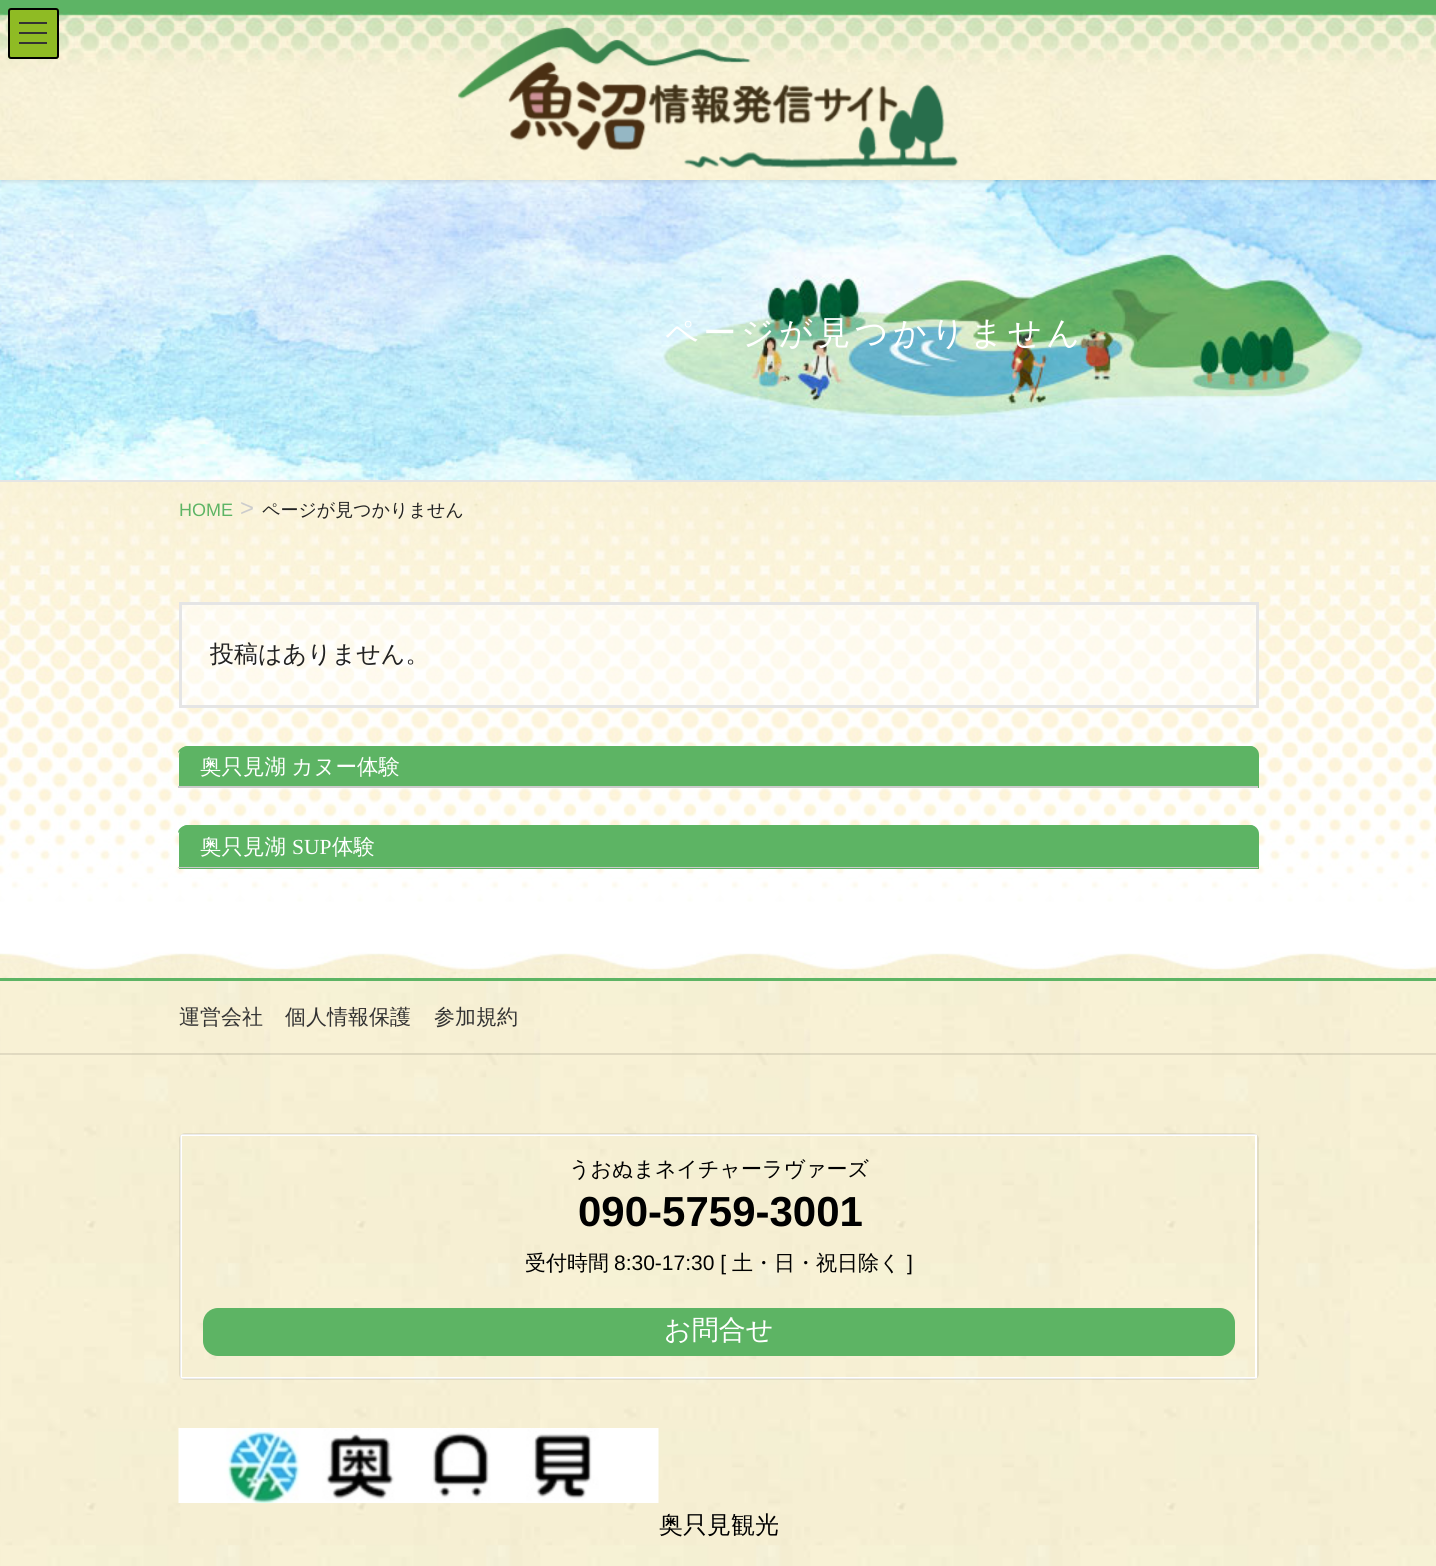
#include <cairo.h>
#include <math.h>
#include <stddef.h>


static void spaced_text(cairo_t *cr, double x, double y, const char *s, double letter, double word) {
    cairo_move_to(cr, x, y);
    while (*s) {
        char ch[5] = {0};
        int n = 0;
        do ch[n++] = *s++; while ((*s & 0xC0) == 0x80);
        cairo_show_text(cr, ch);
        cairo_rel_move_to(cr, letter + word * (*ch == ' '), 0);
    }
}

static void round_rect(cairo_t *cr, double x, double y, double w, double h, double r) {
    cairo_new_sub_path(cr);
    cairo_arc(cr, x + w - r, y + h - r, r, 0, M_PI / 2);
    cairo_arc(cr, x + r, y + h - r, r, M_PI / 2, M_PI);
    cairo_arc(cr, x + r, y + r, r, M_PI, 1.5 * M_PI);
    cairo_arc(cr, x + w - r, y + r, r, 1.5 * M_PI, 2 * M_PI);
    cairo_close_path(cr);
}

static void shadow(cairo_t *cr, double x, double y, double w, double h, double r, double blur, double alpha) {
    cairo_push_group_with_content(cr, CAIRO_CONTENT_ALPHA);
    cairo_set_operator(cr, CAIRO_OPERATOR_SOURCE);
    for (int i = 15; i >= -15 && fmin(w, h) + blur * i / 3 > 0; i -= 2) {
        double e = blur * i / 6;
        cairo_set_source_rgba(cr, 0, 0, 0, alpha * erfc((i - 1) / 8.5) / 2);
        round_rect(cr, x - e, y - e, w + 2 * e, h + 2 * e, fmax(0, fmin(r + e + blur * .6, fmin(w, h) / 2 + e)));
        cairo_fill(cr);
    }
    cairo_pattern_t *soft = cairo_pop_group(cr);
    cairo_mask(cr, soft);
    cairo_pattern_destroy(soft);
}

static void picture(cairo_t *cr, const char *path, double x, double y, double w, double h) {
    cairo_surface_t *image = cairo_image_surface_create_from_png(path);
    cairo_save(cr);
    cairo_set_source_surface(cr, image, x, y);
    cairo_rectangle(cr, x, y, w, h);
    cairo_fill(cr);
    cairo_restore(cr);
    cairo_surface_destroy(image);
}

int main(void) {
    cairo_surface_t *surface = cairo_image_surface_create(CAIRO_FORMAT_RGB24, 1436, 1566);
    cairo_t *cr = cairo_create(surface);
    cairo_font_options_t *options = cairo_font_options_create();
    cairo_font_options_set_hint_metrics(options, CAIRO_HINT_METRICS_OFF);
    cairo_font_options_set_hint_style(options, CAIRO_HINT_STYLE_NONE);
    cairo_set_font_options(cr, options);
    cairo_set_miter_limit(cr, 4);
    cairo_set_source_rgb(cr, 1, 1, 1);
    cairo_paint(cr);
    picture(cr, "img3.png", 0, 180, 1436, 300);
    cairo_set_source_rgb(cr, 0, 0, 0);
    shadow(cr, 0, 2, 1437, 180, 0, 2, 0.1);
    picture(cr, "img1.png", 0, 0, 1436, 180);
    picture(cr, "img2.png", 458, 26, 501, 143);
    cairo_set_source_rgb(cr, 0.561, 0.733, 0.141);
    round_rect(cr, 8, 8, 51, 51, 3);
    cairo_fill(cr);
    cairo_set_source_rgb(cr, 0.2, 0.2, 0.2);
    cairo_rectangle(cr, 19, 22, 28, 2);
    cairo_fill(cr);
    cairo_rectangle(cr, 19, 32, 28, 2);
    cairo_fill(cr);
    cairo_rectangle(cr, 19, 42, 28, 2);
    cairo_fill(cr);
    round_rect(cr, 9, 9, 49, 49, 2);
    cairo_set_source_rgb(cr, 0, 0, 0);
    cairo_stroke(cr);
    cairo_select_font_face(cr, "WenQuanYi Zen Hei Medium", CAIRO_FONT_SLANT_NORMAL, CAIRO_FONT_WEIGHT_NORMAL);
    cairo_set_font_size(cr, 33);
    cairo_set_source_rgb(cr, 1, 1, 1);
    spaced_text(cr, 665, 344, "ページが見つかりません", 4.5, 0);
    cairo_set_source_rgb(cr, 0.898, 0.898, 0.898);
    cairo_rectangle(cr, 0, 480, 1436, 2);
    cairo_fill(cr);
    picture(cr, "img4.png", 0, 482, 1436, 496);
    cairo_select_font_face(cr, "Liberation Sans", CAIRO_FONT_SLANT_NORMAL, CAIRO_FONT_WEIGHT_NORMAL);
    cairo_set_font_size(cr, 18);
    cairo_set_source_rgb(cr, 0.365, 0.706, 0.392);
    cairo_move_to(cr, 179, 516);
    cairo_show_text(cr, "HOME");
    cairo_set_font_size(cr, 24);
    cairo_set_source_rgb(cr, 0.8, 0.8, 0.8);
    cairo_move_to(cr, 240, 516);
    cairo_show_text(cr, ">");
    cairo_select_font_face(cr, "WenQuanYi Zen Hei Medium", CAIRO_FONT_SLANT_NORMAL, CAIRO_FONT_WEIGHT_NORMAL);
    cairo_set_font_size(cr, 18);
    cairo_set_source_rgb(cr, 0.133, 0.133, 0.133);
    cairo_move_to(cr, 262, 516);
    cairo_show_text(cr, "ページが見つかりません");
    cairo_set_source_rgba(cr, 1, 1, 1, 0.5);
    cairo_rectangle(cr, 180.5, 603.5, 1077, 103);
    cairo_fill_preserve(cr);
    cairo_set_source_rgb(cr, 0.898, 0.898, 0.898);
    cairo_set_line_width(cr, 3);
    cairo_stroke(cr);
    cairo_set_font_size(cr, 24);
    cairo_set_source_rgb(cr, 0.133, 0.133, 0.133);
    cairo_move_to(cr, 210, 662);
    cairo_show_text(cr, "投稿はありません。");
    cairo_set_source_rgb(cr, 0.365, 0.706, 0.392);
    cairo_new_path(cr);
    cairo_move_to(cr, 188, 746);
    cairo_line_to(cr, 1250, 746);
    cairo_curve_to(cr, 1255, 746, 1259, 750, 1259, 755);
    cairo_line_to(cr, 1259, 788);
    cairo_line_to(cr, 179, 788);
    cairo_line_to(cr, 179, 755);
    cairo_curve_to(cr, 179, 750, 183, 746, 188, 746);
    cairo_close_path(cr);
    cairo_fill(cr);
    cairo_new_path(cr);
    cairo_move_to(cr, 188, 746);
    cairo_line_to(cr, 1250, 746);
    cairo_curve_to(cr, 1254, 746, 1258, 750, 1258, 754);
    cairo_curve_to(cr, 1258, 752, 1254, 750, 1250, 750);
    cairo_line_to(cr, 188, 750);
    cairo_curve_to(cr, 184, 750, 180, 751, 178, 753);
    cairo_curve_to(cr, 178, 749, 184, 746, 188, 746);
    cairo_close_path(cr);
    cairo_fill(cr);
    cairo_set_source_rgb(cr, 0.8, 0.8, 0.8);
    cairo_rectangle(cr, 178, 786, 1080, 2);
    cairo_fill(cr);
    cairo_set_font_size(cr, 21.5);
    cairo_set_source_rgb(cr, 1, 1, 1);
    spaced_text(cr, 200, 774, "奥只見湖 カヌー体験", 0, -1);
    cairo_set_source_rgb(cr, 0.365, 0.706, 0.392);
    cairo_new_path(cr);
    cairo_move_to(cr, 188, 825);
    cairo_line_to(cr, 1250, 825);
    cairo_curve_to(cr, 1255, 825, 1259, 829, 1259, 834);
    cairo_line_to(cr, 1259, 869);
    cairo_line_to(cr, 179, 869);
    cairo_line_to(cr, 179, 834);
    cairo_curve_to(cr, 179, 829, 183, 825, 188, 825);
    cairo_close_path(cr);
    cairo_fill(cr);
    cairo_new_path(cr);
    cairo_move_to(cr, 188, 825);
    cairo_curve_to(cr, 184, 825, 178, 828, 178, 833);
    cairo_curve_to(cr, 180, 831, 184, 830, 188, 830);
    cairo_line_to(cr, 1250, 830);
    cairo_curve_to(cr, 1254, 830, 1258, 832, 1258, 834);
    cairo_curve_to(cr, 1258, 829, 1254, 825, 1250, 825);
    cairo_close_path(cr);
    cairo_fill(cr);
    cairo_set_source_rgb(cr, 0.8, 0.8, 0.8);
    cairo_rectangle(cr, 178, 867, 1080, 1);
    cairo_fill(cr);
    cairo_set_source_rgb(cr, 1, 1, 1);
    cairo_move_to(cr, 200, 854);
    cairo_show_text(cr, "奥只見湖");
    cairo_select_font_face(cr, "Liberation Serif", CAIRO_FONT_SLANT_NORMAL, CAIRO_FONT_WEIGHT_NORMAL);
    cairo_move_to(cr, 292, 854);
    cairo_show_text(cr, "SUP");
    cairo_select_font_face(cr, "WenQuanYi Zen Hei Medium", CAIRO_FONT_SLANT_NORMAL, CAIRO_FONT_WEIGHT_NORMAL);
    cairo_move_to(cr, 332, 854);
    cairo_show_text(cr, "体験");
    picture(cr, "img5.png", 0, 981, 1436, 585);
    cairo_set_source_rgb(cr, 0.365, 0.706, 0.392);
    cairo_rectangle(cr, 0, 978, 1436, 3);
    cairo_fill(cr);
    cairo_set_source_rgba(cr, 0, 0, 0, 0.1);
    cairo_rectangle(cr, 0, 1053, 1436, 2);
    cairo_fill(cr);
    cairo_set_font_size(cr, 21);
    cairo_set_source_rgb(cr, 0.2, 0.2, 0.2);
    cairo_move_to(cr, 179, 1024);
    cairo_show_text(cr, "運営会社");
    cairo_move_to(cr, 285, 1024);
    cairo_show_text(cr, "個人情報保護");
    cairo_move_to(cr, 434, 1024);
    cairo_show_text(cr, "参加規約");
    cairo_set_source_rgb(cr, 1, 1, 1);
    cairo_set_fill_rule(cr, CAIRO_FILL_RULE_EVEN_ODD);
    cairo_new_path(cr);
    cairo_move_to(cr, 180, 1136);
    cairo_line_to(cr, 182, 1134);
    cairo_line_to(cr, 1256, 1134);
    cairo_line_to(cr, 1257, 1135);
    cairo_line_to(cr, 1257, 1378);
    cairo_line_to(cr, 1256, 1379);
    cairo_line_to(cr, 182, 1379);
    cairo_line_to(cr, 180, 1377);
    cairo_close_path(cr);
    cairo_move_to(cr, 182, 1136);
    cairo_line_to(cr, 182, 1377);
    cairo_line_to(cr, 1255, 1377);
    cairo_line_to(cr, 1255, 1136);
    cairo_close_path(cr);
    cairo_fill(cr);
    cairo_set_source_rgba(cr, 0, 0, 0, 0.08);
    cairo_new_path(cr);
    cairo_move_to(cr, 185, 1133);
    cairo_curve_to(cr, 182, 1133, 179, 1136, 179, 1139);
    cairo_line_to(cr, 179, 1374);
    cairo_curve_to(cr, 179, 1377, 182, 1380, 185, 1380);
    cairo_line_to(cr, 1253, 1380);
    cairo_curve_to(cr, 1256, 1380, 1259, 1377, 1259, 1374);
    cairo_line_to(cr, 1259, 1139);
    cairo_curve_to(cr, 1259, 1136, 1256, 1133, 1253, 1133);
    cairo_close_path(cr);
    cairo_move_to(cr, 181, 1135);
    cairo_line_to(cr, 181, 1378);
    cairo_line_to(cr, 1257, 1378);
    cairo_line_to(cr, 1257, 1135);
    cairo_close_path(cr);
    cairo_fill(cr);
    cairo_set_source_rgb(cr, 0, 0, 0);
    cairo_move_to(cr, 569, 1176);
    cairo_show_text(cr, "うおぬまネイチャーラヴァーズ");
    cairo_select_font_face(cr, "Liberation Sans", CAIRO_FONT_SLANT_NORMAL, CAIRO_FONT_WEIGHT_BOLD);
    cairo_set_font_size(cr, 42);
    cairo_move_to(cr, 578, 1226);
    cairo_show_text(cr, "090-5759-3001");
    cairo_select_font_face(cr, "WenQuanYi Zen Hei Medium", CAIRO_FONT_SLANT_NORMAL, CAIRO_FONT_WEIGHT_NORMAL);
    cairo_set_font_size(cr, 21);
    cairo_move_to(cr, 525, 1270);
    cairo_show_text(cr, "受付時間");
    cairo_select_font_face(cr, "Liberation Sans", CAIRO_FONT_SLANT_NORMAL, CAIRO_FONT_WEIGHT_NORMAL);
    cairo_move_to(cr, 614, 1270);
    cairo_show_text(cr, "8:30-17:30 [");
    cairo_select_font_face(cr, "WenQuanYi Zen Hei Medium", CAIRO_FONT_SLANT_NORMAL, CAIRO_FONT_WEIGHT_NORMAL);
    cairo_move_to(cr, 732, 1270);
    cairo_show_text(cr, "土・日・祝日除く");
    cairo_select_font_face(cr, "Liberation Sans", CAIRO_FONT_SLANT_NORMAL, CAIRO_FONT_WEIGHT_NORMAL);
    cairo_move_to(cr, 907, 1270);
    cairo_show_text(cr, "]");
    cairo_set_source_rgb(cr, 0.365, 0.706, 0.392);
    round_rect(cr, 203, 1308, 1032, 48, 15);
    cairo_fill(cr);
    cairo_select_font_face(cr, "WenQuanYi Zen Hei Medium", CAIRO_FONT_SLANT_NORMAL, CAIRO_FONT_WEIGHT_NORMAL);
    cairo_set_font_size(cr, 27);
    cairo_set_source_rgb(cr, 1, 1, 1);
    cairo_move_to(cr, 664, 1339);
    cairo_show_text(cr, "お問合せ");
    picture(cr, "img6.png", 178, 1428, 481, 75);
    cairo_set_font_size(cr, 24);
    cairo_set_source_rgb(cr, 0, 0, 0);
    cairo_move_to(cr, 659, 1533);
    cairo_show_text(cr, "奥只見観光");
    cairo_surface_write_to_png(surface, "page.png");
    cairo_font_options_destroy(options);
    cairo_destroy(cr);
    cairo_surface_destroy(surface);
    return 0;
}
